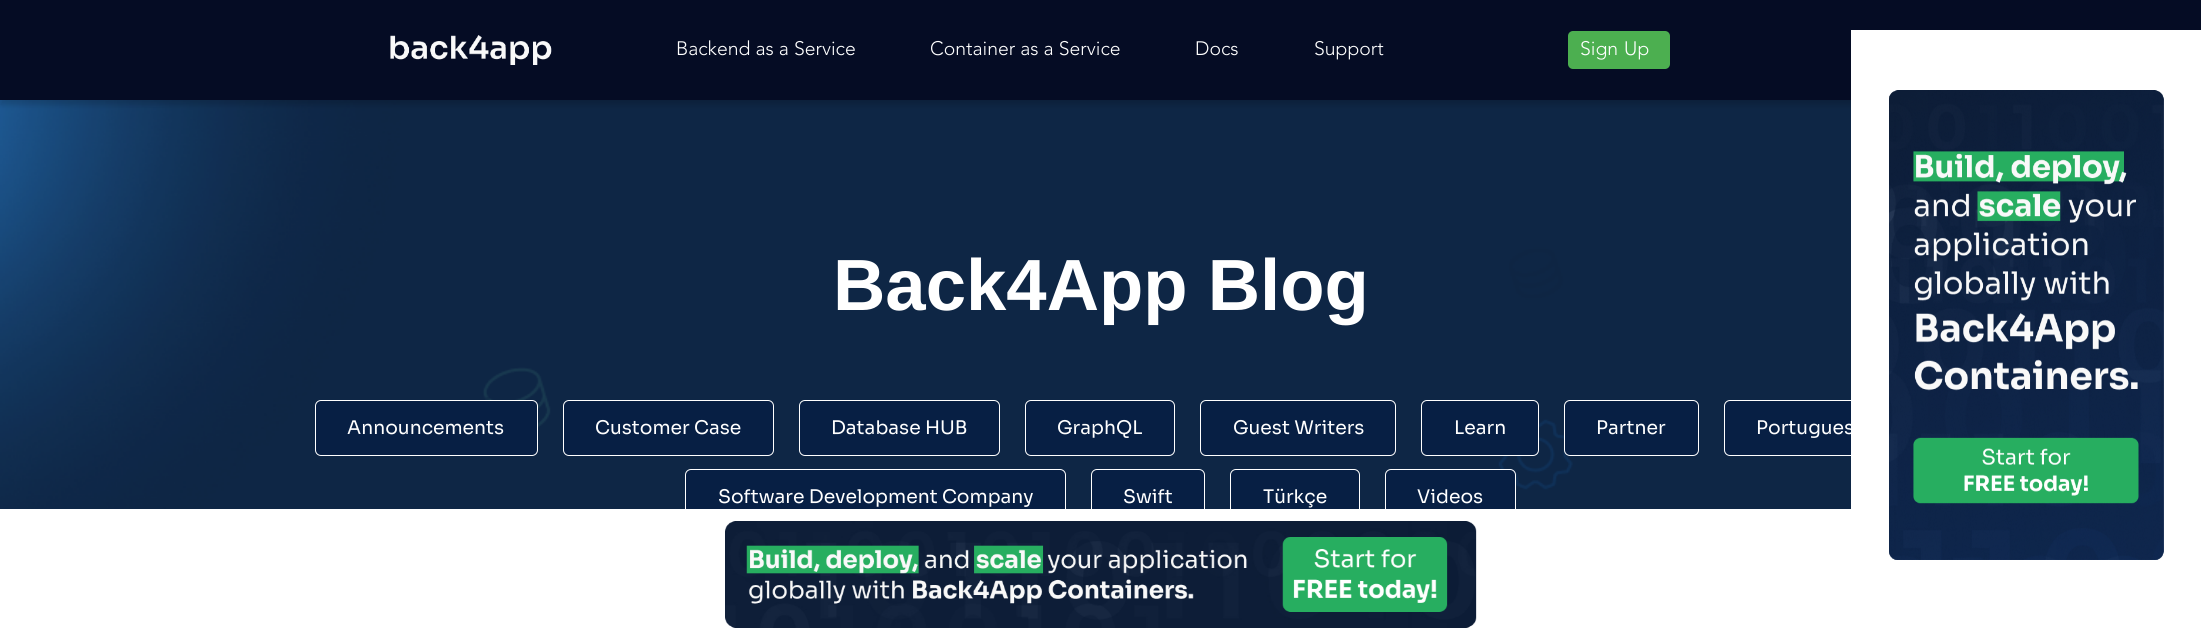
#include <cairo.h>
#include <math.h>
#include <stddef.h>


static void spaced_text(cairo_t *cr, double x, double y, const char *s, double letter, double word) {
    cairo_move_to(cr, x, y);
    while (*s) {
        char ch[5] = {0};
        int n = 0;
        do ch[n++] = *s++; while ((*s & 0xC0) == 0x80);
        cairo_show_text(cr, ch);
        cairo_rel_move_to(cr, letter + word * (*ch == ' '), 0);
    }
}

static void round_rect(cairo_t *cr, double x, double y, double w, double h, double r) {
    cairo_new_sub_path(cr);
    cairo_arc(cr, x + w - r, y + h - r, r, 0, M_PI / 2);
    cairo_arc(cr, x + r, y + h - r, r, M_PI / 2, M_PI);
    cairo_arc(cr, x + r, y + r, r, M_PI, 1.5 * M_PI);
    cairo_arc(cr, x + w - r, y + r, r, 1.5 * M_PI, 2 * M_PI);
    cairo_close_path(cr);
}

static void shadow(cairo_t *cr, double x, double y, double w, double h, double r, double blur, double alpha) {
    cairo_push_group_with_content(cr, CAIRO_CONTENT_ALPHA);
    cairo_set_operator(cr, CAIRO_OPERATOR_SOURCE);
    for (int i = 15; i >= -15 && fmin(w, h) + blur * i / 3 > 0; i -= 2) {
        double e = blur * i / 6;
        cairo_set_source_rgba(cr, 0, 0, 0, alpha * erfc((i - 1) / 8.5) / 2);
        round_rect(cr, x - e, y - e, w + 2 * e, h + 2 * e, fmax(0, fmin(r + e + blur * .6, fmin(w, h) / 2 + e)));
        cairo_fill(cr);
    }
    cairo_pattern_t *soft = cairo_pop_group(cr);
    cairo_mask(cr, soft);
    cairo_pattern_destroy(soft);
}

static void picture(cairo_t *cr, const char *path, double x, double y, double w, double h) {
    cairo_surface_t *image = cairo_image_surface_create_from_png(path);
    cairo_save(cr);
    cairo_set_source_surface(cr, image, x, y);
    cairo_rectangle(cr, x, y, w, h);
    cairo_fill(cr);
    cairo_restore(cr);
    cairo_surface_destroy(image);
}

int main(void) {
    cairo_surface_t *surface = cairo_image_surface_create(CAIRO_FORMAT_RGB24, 2201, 640);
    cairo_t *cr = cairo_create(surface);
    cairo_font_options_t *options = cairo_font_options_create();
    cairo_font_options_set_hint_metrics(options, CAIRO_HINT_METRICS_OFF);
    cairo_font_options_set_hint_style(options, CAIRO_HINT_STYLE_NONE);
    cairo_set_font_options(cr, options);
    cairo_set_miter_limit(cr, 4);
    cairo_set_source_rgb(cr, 1, 1, 1);
    cairo_paint(cr);
    picture(cr, "img3.png", 0, 100, 1851, 409);
    cairo_set_source_rgb(cr, 0, 0, 0);
    shadow(cr, 0, 5, 2201, 100, 0, 2.5, 0.15);
    cairo_set_source_rgb(cr, 0.02, 0.047, 0.141);
    cairo_rectangle(cr, 0, 0, 2201, 100);
    cairo_fill(cr);
    picture(cr, "img1.png", 390, 35, 162, 30);
    cairo_select_font_face(cr, "Avenir Light", CAIRO_FONT_SLANT_NORMAL, CAIRO_FONT_WEIGHT_NORMAL);
    cairo_set_font_size(cr, 19.4);
    cairo_set_source_rgb(cr, 1, 1, 1);
    cairo_move_to(cr, 676, 55);
    cairo_show_text(cr, "Backend as a Service");
    cairo_move_to(cr, 930, 55);
    cairo_show_text(cr, "Container as a Service");
    cairo_move_to(cr, 1195, 55);
    cairo_show_text(cr, "Docs");
    cairo_move_to(cr, 1314, 55);
    cairo_show_text(cr, "Support");
    cairo_set_source_rgb(cr, 0.298, 0.686, 0.314);
    round_rect(cr, 1568, 31, 102, 38, 5);
    cairo_fill(cr);
    cairo_set_source_rgb(cr, 1, 1, 1);
    spaced_text(cr, 1580, 55, "Sign Up", 0, 1);
    cairo_set_source_rgb(cr, 0.031, 0.122, 0.267);
    round_rect(cr, 1724.5, 400.5, 161, 55, 5.5);
    cairo_fill_preserve(cr);
    cairo_set_source_rgb(cr, 1, 1, 1);
    cairo_set_line_width(cr, 1);
    cairo_stroke(cr);
    cairo_rectangle(cr, 1851, 30, 350, 426);
    cairo_fill(cr);
    picture(cr, "img2.png", 1889, 90, 275, 470);
    cairo_select_font_face(cr, "Liberation Sans", CAIRO_FONT_SLANT_NORMAL, CAIRO_FONT_WEIGHT_BOLD);
    cairo_set_font_size(cr, 72.5);
    cairo_move_to(cr, 833, 310);
    cairo_show_text(cr, "Back4App Blog");
    cairo_set_source_rgb(cr, 0.031, 0.122, 0.267);
    round_rect(cr, 315.5, 400.5, 222, 55, 5.5);
    cairo_fill_preserve(cr);
    cairo_set_source_rgb(cr, 1, 1, 1);
    cairo_stroke(cr);
    cairo_select_font_face(cr, "Sora", CAIRO_FONT_SLANT_NORMAL, CAIRO_FONT_WEIGHT_NORMAL);
    cairo_set_font_size(cr, 18.75);
    cairo_move_to(cr, 347, 434);
    cairo_show_text(cr, "Announcements");
    cairo_set_source_rgb(cr, 0.031, 0.122, 0.267);
    round_rect(cr, 563.5, 400.5, 210, 55, 5.5);
    cairo_fill_preserve(cr);
    cairo_set_source_rgb(cr, 1, 1, 1);
    cairo_stroke(cr);
    cairo_move_to(cr, 595, 434);
    cairo_show_text(cr, "Customer Case");
    cairo_set_source_rgb(cr, 0.031, 0.122, 0.267);
    round_rect(cr, 799.5, 400.5, 200, 55, 5.5);
    cairo_fill_preserve(cr);
    cairo_set_source_rgb(cr, 1, 1, 1);
    cairo_stroke(cr);
    cairo_move_to(cr, 831, 434);
    cairo_show_text(cr, "Database HUB");
    cairo_set_source_rgb(cr, 0.031, 0.122, 0.267);
    round_rect(cr, 1025.5, 400.5, 149, 55, 5.5);
    cairo_fill_preserve(cr);
    cairo_set_source_rgb(cr, 1, 1, 1);
    cairo_stroke(cr);
    cairo_move_to(cr, 1057, 434);
    cairo_show_text(cr, "GraphQL");
    cairo_set_source_rgb(cr, 0.031, 0.122, 0.267);
    round_rect(cr, 1200.5, 400.5, 195, 55, 5.5);
    cairo_fill_preserve(cr);
    cairo_set_source_rgb(cr, 1, 1, 1);
    cairo_stroke(cr);
    cairo_move_to(cr, 1233, 434);
    cairo_show_text(cr, "Guest Writers");
    cairo_set_source_rgb(cr, 0.031, 0.122, 0.267);
    round_rect(cr, 1421.5, 400.5, 117, 55, 5.5);
    cairo_fill_preserve(cr);
    cairo_set_source_rgb(cr, 1, 1, 1);
    cairo_stroke(cr);
    cairo_move_to(cr, 1454, 434);
    cairo_show_text(cr, "Learn");
    cairo_set_source_rgb(cr, 0.031, 0.122, 0.267);
    round_rect(cr, 1564.5, 400.5, 134, 55, 5.5);
    cairo_fill_preserve(cr);
    cairo_set_source_rgb(cr, 1, 1, 1);
    cairo_stroke(cr);
    cairo_move_to(cr, 1596, 434);
    cairo_show_text(cr, "Partner");
    cairo_move_to(cr, 1756, 434);
    cairo_show_text(cr, "Portugues");
    cairo_set_source_rgb(cr, 0.031, 0.122, 0.267);
    round_rect(cr, 685.5, 469.5, 380, 56, 5.5);
    cairo_fill_preserve(cr);
    cairo_set_source_rgb(cr, 1, 1, 1);
    cairo_stroke(cr);
    cairo_move_to(cr, 718, 503);
    cairo_show_text(cr, "Software Development Company");
    cairo_set_source_rgb(cr, 0.031, 0.122, 0.267);
    round_rect(cr, 1091.5, 469.5, 113, 56, 5.5);
    cairo_fill_preserve(cr);
    cairo_set_source_rgb(cr, 1, 1, 1);
    cairo_stroke(cr);
    cairo_move_to(cr, 1123, 503);
    cairo_show_text(cr, "Swift");
    cairo_set_source_rgb(cr, 0.031, 0.122, 0.267);
    round_rect(cr, 1230.5, 469.5, 129, 56, 5.5);
    cairo_fill_preserve(cr);
    cairo_set_source_rgb(cr, 1, 1, 1);
    cairo_stroke(cr);
    cairo_move_to(cr, 1263, 503);
    cairo_show_text(cr, "Türkçe");
    cairo_set_source_rgb(cr, 0.031, 0.122, 0.267);
    round_rect(cr, 1385.5, 469.5, 130, 56, 5.5);
    cairo_fill_preserve(cr);
    cairo_set_source_rgb(cr, 1, 1, 1);
    cairo_stroke(cr);
    cairo_move_to(cr, 1417, 503);
    cairo_show_text(cr, "Videos");
    cairo_rectangle(cr, 685, 509, 831, 17);
    cairo_fill(cr);
    picture(cr, "img4.png", 725, 521, 752, 107);
    cairo_surface_write_to_png(surface, "page.png");
    cairo_font_options_destroy(options);
    cairo_destroy(cr);
    cairo_surface_destroy(surface);
    return 0;
}
